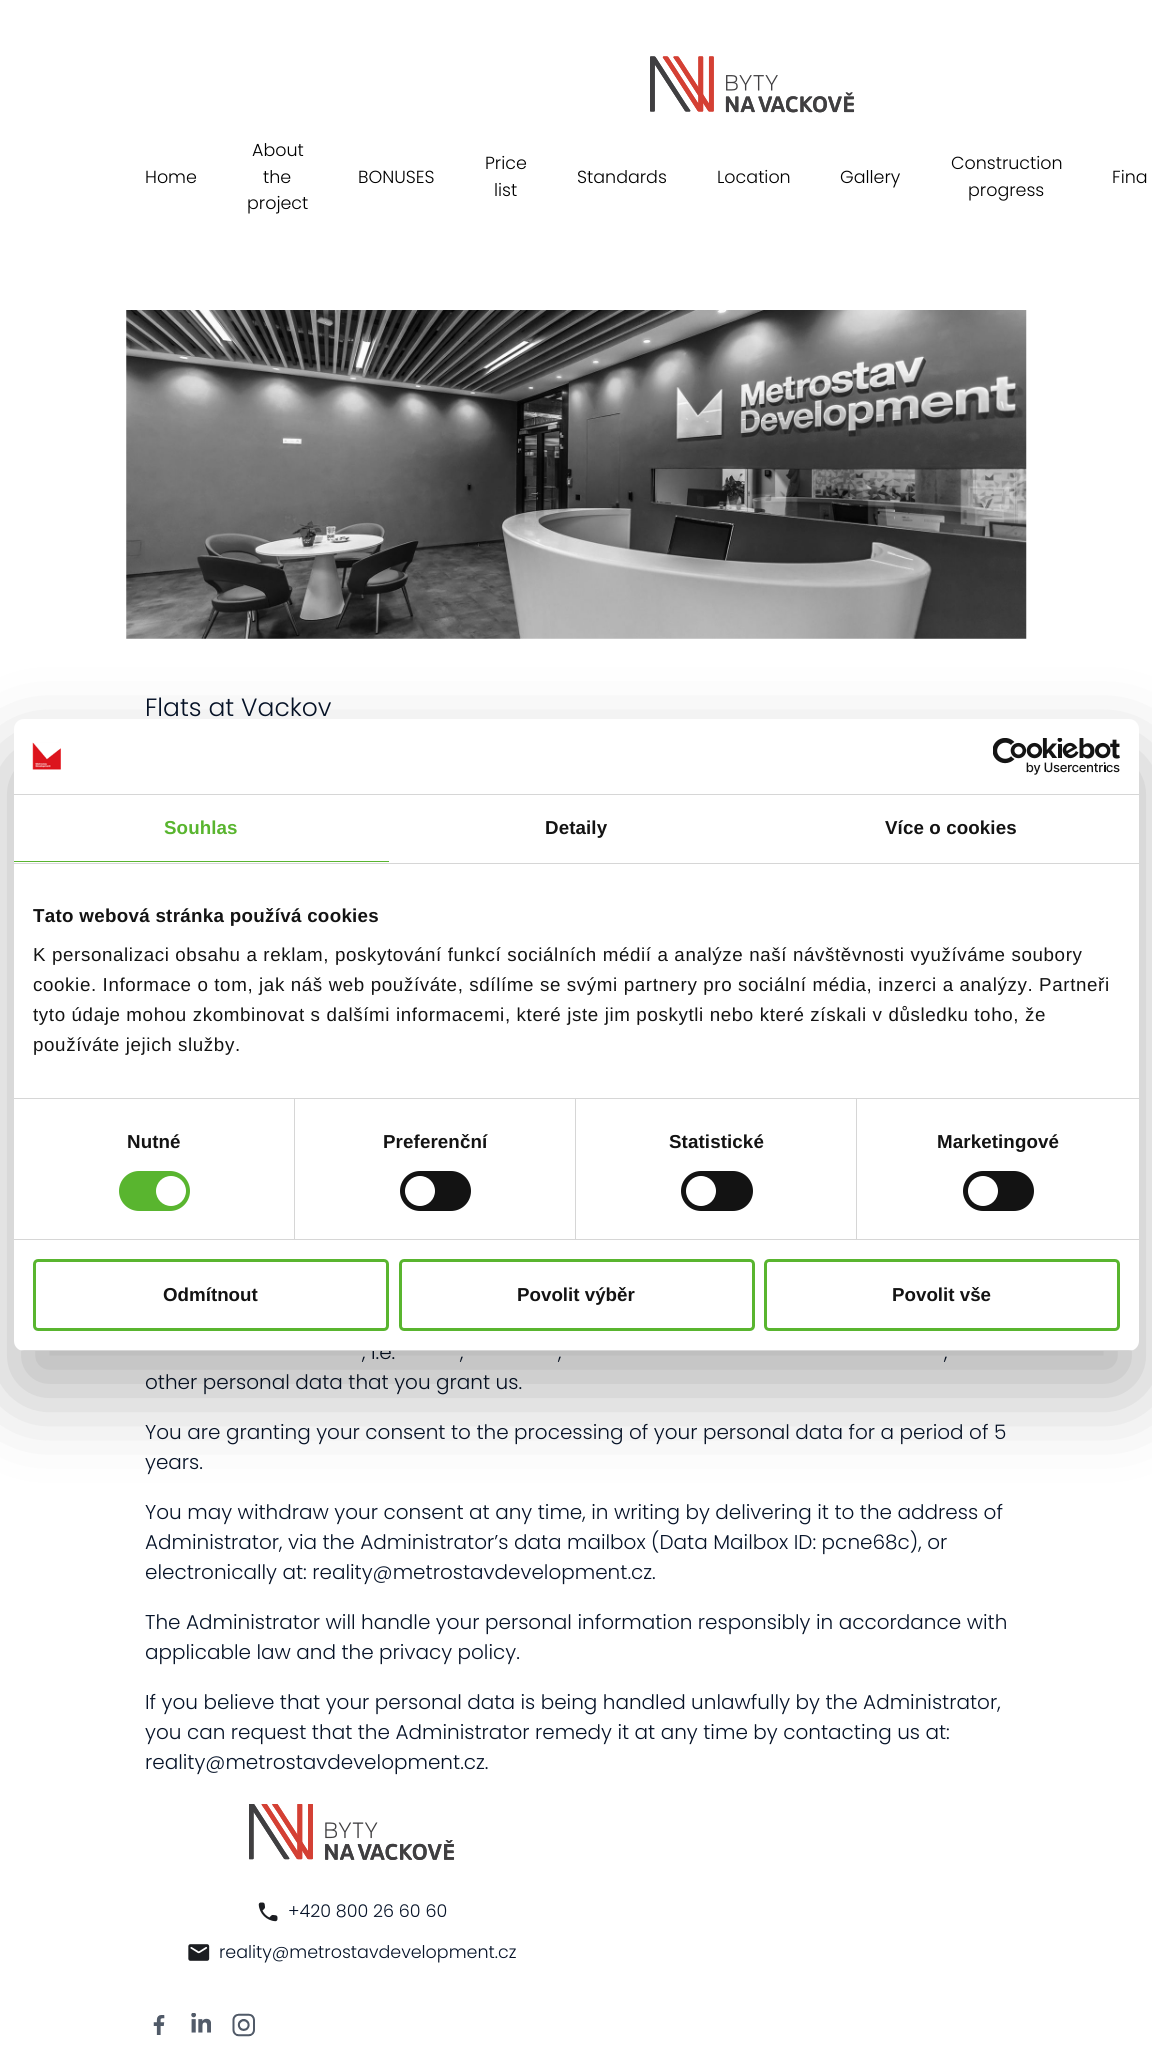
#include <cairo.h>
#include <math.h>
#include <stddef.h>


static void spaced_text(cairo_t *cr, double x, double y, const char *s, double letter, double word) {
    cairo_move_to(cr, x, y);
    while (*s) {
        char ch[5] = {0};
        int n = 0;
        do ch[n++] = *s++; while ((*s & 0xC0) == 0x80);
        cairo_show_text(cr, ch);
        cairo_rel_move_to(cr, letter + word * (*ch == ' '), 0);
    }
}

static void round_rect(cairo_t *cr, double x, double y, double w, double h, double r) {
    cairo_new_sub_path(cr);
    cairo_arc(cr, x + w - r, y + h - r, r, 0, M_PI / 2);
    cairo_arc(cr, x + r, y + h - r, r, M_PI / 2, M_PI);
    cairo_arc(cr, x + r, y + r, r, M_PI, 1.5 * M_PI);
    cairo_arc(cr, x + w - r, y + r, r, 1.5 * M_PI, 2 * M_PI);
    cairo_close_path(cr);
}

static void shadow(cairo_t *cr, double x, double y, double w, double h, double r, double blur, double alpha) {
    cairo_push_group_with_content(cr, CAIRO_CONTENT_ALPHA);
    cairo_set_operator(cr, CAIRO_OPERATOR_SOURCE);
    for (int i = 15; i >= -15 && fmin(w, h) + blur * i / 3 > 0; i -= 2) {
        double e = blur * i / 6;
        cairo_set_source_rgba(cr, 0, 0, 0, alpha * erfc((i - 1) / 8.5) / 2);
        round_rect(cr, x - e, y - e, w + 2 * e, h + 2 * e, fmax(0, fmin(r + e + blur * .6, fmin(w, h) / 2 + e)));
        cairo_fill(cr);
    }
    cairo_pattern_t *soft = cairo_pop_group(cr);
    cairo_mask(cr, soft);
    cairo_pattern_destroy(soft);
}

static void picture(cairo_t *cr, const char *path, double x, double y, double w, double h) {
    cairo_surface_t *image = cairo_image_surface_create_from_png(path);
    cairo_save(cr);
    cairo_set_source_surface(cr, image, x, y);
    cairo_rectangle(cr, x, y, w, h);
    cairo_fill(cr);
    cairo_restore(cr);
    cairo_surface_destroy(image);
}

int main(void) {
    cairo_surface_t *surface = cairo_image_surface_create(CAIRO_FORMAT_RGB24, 1152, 2069);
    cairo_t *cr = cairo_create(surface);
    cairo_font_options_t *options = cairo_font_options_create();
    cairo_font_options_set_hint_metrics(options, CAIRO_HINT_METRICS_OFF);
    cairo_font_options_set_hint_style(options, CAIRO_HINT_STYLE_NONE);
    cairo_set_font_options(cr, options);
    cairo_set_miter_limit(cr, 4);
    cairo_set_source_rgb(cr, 1, 1, 1);
    cairo_paint(cr);
    picture(cr, "img1.png", 650, 56, 205, 57);
    cairo_select_font_face(cr, "Poppins Light", CAIRO_FONT_SLANT_NORMAL, CAIRO_FONT_WEIGHT_NORMAL);
    cairo_set_font_size(cr, 17.5);
    cairo_set_source_rgb(cr, 0, 0, 0);
    cairo_move_to(cr, 145, 183);
    cairo_show_text(cr, "Home");
    cairo_move_to(cr, 252, 156);
    cairo_show_text(cr, "About");
    cairo_move_to(cr, 263, 183);
    cairo_show_text(cr, "the");
    cairo_move_to(cr, 247, 209);
    cairo_show_text(cr, "project");
    cairo_move_to(cr, 358, 183);
    cairo_show_text(cr, "BONUSES");
    cairo_move_to(cr, 485, 169);
    cairo_show_text(cr, "Price");
    cairo_move_to(cr, 494, 196);
    cairo_show_text(cr, "list");
    cairo_move_to(cr, 577, 183);
    cairo_show_text(cr, "Standards");
    cairo_move_to(cr, 717, 183);
    cairo_show_text(cr, "Location");
    cairo_move_to(cr, 840, 183);
    cairo_show_text(cr, "Gallery");
    cairo_move_to(cr, 951, 169);
    cairo_show_text(cr, "Construction");
    cairo_move_to(cr, 968, 196);
    cairo_show_text(cr, "progress");
    cairo_move_to(cr, 1112, 183);
    cairo_show_text(cr, "Fina");
    picture(cr, "img2.png", 126, 310, 901, 329);
    cairo_set_font_size(cr, 25);
    cairo_set_source_rgb(cr, 0.027, 0.078, 0.157);
    cairo_move_to(cr, 145, 716);
    cairo_show_text(cr, "Flats at Vackov");
    cairo_set_font_size(cr, 20);
    cairo_move_to(cr, 362, 1359);
    cairo_show_text(cr, ", i.e.");
    cairo_move_to(cr, 460, 1359);
    cairo_show_text(cr, ",");
    cairo_move_to(cr, 558, 1359);
    cairo_show_text(cr, ",");
    cairo_move_to(cr, 944, 1359);
    cairo_show_text(cr, ",");
    cairo_move_to(cr, 145, 1389);
    cairo_show_text(cr, "other personal data that you grant us.");
    cairo_move_to(cr, 145, 1439);
    cairo_show_text(cr, "You are granting your consent to the processing of your personal data for a period of 5");
    cairo_move_to(cr, 145, 1469);
    cairo_show_text(cr, "years.");
    cairo_move_to(cr, 145, 1519);
    cairo_show_text(cr, "You may withdraw your consent at any time, in writing by delivering it to the address of");
    cairo_move_to(cr, 145, 1549);
    cairo_show_text(cr, "Administrator, via the Administrator’s data mailbox (Data Mailbox ID: pcne68c), or");
    cairo_move_to(cr, 145, 1579);
    cairo_show_text(cr, "electronically at: reality@metrostavdevelopment.cz.");
    cairo_move_to(cr, 145, 1629);
    cairo_show_text(cr, "The Administrator will handle your personal information responsibly in accordance with");
    cairo_move_to(cr, 145, 1659);
    cairo_show_text(cr, "applicable law and the privacy policy.");
    cairo_move_to(cr, 145, 1709);
    cairo_show_text(cr, "If you believe that your personal data is being handled unlawfully by the Administrator,");
    cairo_move_to(cr, 145, 1739);
    cairo_show_text(cr, "you can request that the Administrator remedy it at any time by contacting us at:");
    cairo_move_to(cr, 145, 1769);
    cairo_show_text(cr, "reality@metrostavdevelopment.cz.");
    picture(cr, "img3.png", 249, 1804, 206, 56);
    picture(cr, "img4.png", 258, 1902, 20, 20);
    cairo_set_font_size(cr, 17.5);
    cairo_move_to(cr, 288, 1917);
    cairo_show_text(cr, "+420 800 26 60 60");
    picture(cr, "img5.png", 188, 1944, 22, 17);
    cairo_move_to(cr, 219, 1958);
    cairo_show_text(cr, "reality@metrostavdevelopment.cz");
    picture(cr, "img6.png", 153, 2015, 12, 20);
    picture(cr, "img7.png", 191, 2013, 20, 20);
    picture(cr, "img8.png", 232, 2013, 23, 24);
    cairo_set_source_rgb(cr, 0, 0, 0);
    shadow(cr, 14, 759, 1125, 632, 10, 42.5, 0.3);
    cairo_set_source_rgb(cr, 1, 1, 1);
    round_rect(cr, 14, 719, 1125, 632, 10);
    cairo_fill(cr);
    cairo_set_source_rgb(cr, 0.839, 0.839, 0.839);
    cairo_rectangle(cr, 14, 794, 1125, 1);
    cairo_fill(cr);
    picture(cr, "img9.png", 32, 742, 29, 28);
    picture(cr, "img10.png", 993, 738, 127, 37);
    cairo_rectangle(cr, 14, 863, 1125, 1);
    cairo_fill(cr);
    cairo_set_source_rgb(cr, 0.349, 0.71, 0.184);
    cairo_rectangle(cr, 14, 861, 375, 1);
    cairo_fill(cr);
    cairo_select_font_face(cr, "Liberation Sans", CAIRO_FONT_SLANT_NORMAL, CAIRO_FONT_WEIGHT_BOLD);
    cairo_set_font_size(cr, 18.75);
    spaced_text(cr, 164, 834, "Souhlas", 0.1, 0);
    cairo_set_source_rgb(cr, 0.078, 0.078, 0.078);
    spaced_text(cr, 545, 834, "Detaily", 0.1, 0);
    spaced_text(cr, 885, 834, "Více o cookies", 0.1, 0);
    cairo_set_source_rgb(cr, 0.839, 0.839, 0.839);
    cairo_rectangle(cr, 14, 1098, 1125, 1);
    cairo_fill(cr);
    cairo_set_source_rgb(cr, 0.078, 0.078, 0.078);
    spaced_text(cr, 33, 922, "Tato webová stránka používá cookies", 0.3, 0);
    cairo_select_font_face(cr, "Liberation Sans", CAIRO_FONT_SLANT_NORMAL, CAIRO_FONT_WEIGHT_NORMAL);
    spaced_text(cr, 33, 961, "K personalizaci obsahu a reklam, poskytování funkcí sociálních médií a analýze naší návštěvnosti využíváme soubory", 0.62, 0);
    spaced_text(cr, 33, 991, "cookie. Informace o tom, jak náš web používáte, sdílíme se svými partnery pro sociální média, inzerci a analýzy. Partneři", 0.62, 0);
    spaced_text(cr, 33, 1021, "tyto údaje mohou zkombinovat s dalšími informacemi, které jste jim poskytli nebo které získali v důsledku toho, že", 0.62, 0);
    spaced_text(cr, 33, 1051, "používáte jejich služby.", 0.62, 0);
    cairo_set_source_rgb(cr, 0.839, 0.839, 0.839);
    cairo_rectangle(cr, 14, 1239, 1125, 1);
    cairo_fill(cr);
    cairo_rectangle(cr, 294, 1099, 1, 140);
    cairo_fill(cr);
    cairo_select_font_face(cr, "Liberation Sans", CAIRO_FONT_SLANT_NORMAL, CAIRO_FONT_WEIGHT_BOLD);
    cairo_set_source_rgb(cr, 0.078, 0.078, 0.078);
    spaced_text(cr, 127, 1148, "Nutné", 0.1, 0);
    cairo_set_source_rgb(cr, 0.349, 0.71, 0.184);
    round_rect(cr, 119, 1171, 71, 40, 20);
    cairo_fill(cr);
    cairo_set_source_rgb(cr, 1, 1, 1);
    cairo_arc(cr, 171, 1191, 15, 0, 2 * M_PI);
    cairo_fill(cr);
    cairo_set_source_rgb(cr, 0.839, 0.839, 0.839);
    cairo_rectangle(cr, 575, 1099, 1, 140);
    cairo_fill(cr);
    cairo_set_source_rgb(cr, 0.078, 0.078, 0.078);
    spaced_text(cr, 383, 1148, "Preferenční", 0.1, 0);
    round_rect(cr, 400, 1171, 71, 40, 20);
    cairo_fill(cr);
    cairo_set_source_rgb(cr, 1, 1, 1);
    cairo_arc(cr, 420, 1191, 15, 0, 2 * M_PI);
    cairo_fill(cr);
    cairo_set_source_rgb(cr, 0.839, 0.839, 0.839);
    cairo_rectangle(cr, 856, 1099, 1, 140);
    cairo_fill(cr);
    cairo_set_source_rgb(cr, 0.078, 0.078, 0.078);
    spaced_text(cr, 669, 1148, "Statistické", 0.1, 0);
    round_rect(cr, 681, 1171, 72, 40, 20);
    cairo_fill(cr);
    cairo_set_source_rgb(cr, 1, 1, 1);
    cairo_arc(cr, 701, 1191, 15, 0, 2 * M_PI);
    cairo_fill(cr);
    cairo_set_source_rgb(cr, 0.078, 0.078, 0.078);
    spaced_text(cr, 937, 1148, "Marketingové", 0.1, 0);
    round_rect(cr, 963, 1171, 71, 40, 20);
    cairo_fill(cr);
    cairo_set_source_rgb(cr, 1, 1, 1);
    cairo_arc(cr, 983, 1191, 15, 0, 2 * M_PI);
    cairo_fill(cr);
    cairo_save(cr);
    round_rect(cr, 14, 719, 1125, 632, 10);
    cairo_clip(cr);
    cairo_set_source_rgb(cr, 0.839, 0.839, 0.839);
    cairo_rectangle(cr, 14, 1350, 1125, 1);
    cairo_fill(cr);
    cairo_restore(cr);
    round_rect(cr, 34.5, 1260.5, 353, 69, 3.5);
    cairo_set_source_rgb(cr, 0.349, 0.71, 0.184);
    cairo_set_line_width(cr, 3);
    cairo_stroke(cr);
    cairo_set_source_rgb(cr, 0.078, 0.078, 0.078);
    cairo_move_to(cr, 163, 1301);
    cairo_show_text(cr, "Odmítnout");
    round_rect(cr, 400.5, 1260.5, 353, 69, 3.5);
    cairo_set_source_rgb(cr, 0.349, 0.71, 0.184);
    cairo_stroke(cr);
    cairo_set_source_rgb(cr, 0.078, 0.078, 0.078);
    cairo_move_to(cr, 517, 1301);
    cairo_show_text(cr, "Povolit výběr");
    round_rect(cr, 765.5, 1260.5, 353, 69, 3.5);
    cairo_set_source_rgb(cr, 0.349, 0.71, 0.184);
    cairo_stroke(cr);
    cairo_set_source_rgb(cr, 0.078, 0.078, 0.078);
    cairo_move_to(cr, 892, 1301);
    cairo_show_text(cr, "Povolit vše");
    cairo_surface_write_to_png(surface, "page.png");
    cairo_font_options_destroy(options);
    cairo_destroy(cr);
    cairo_surface_destroy(surface);
    return 0;
}
